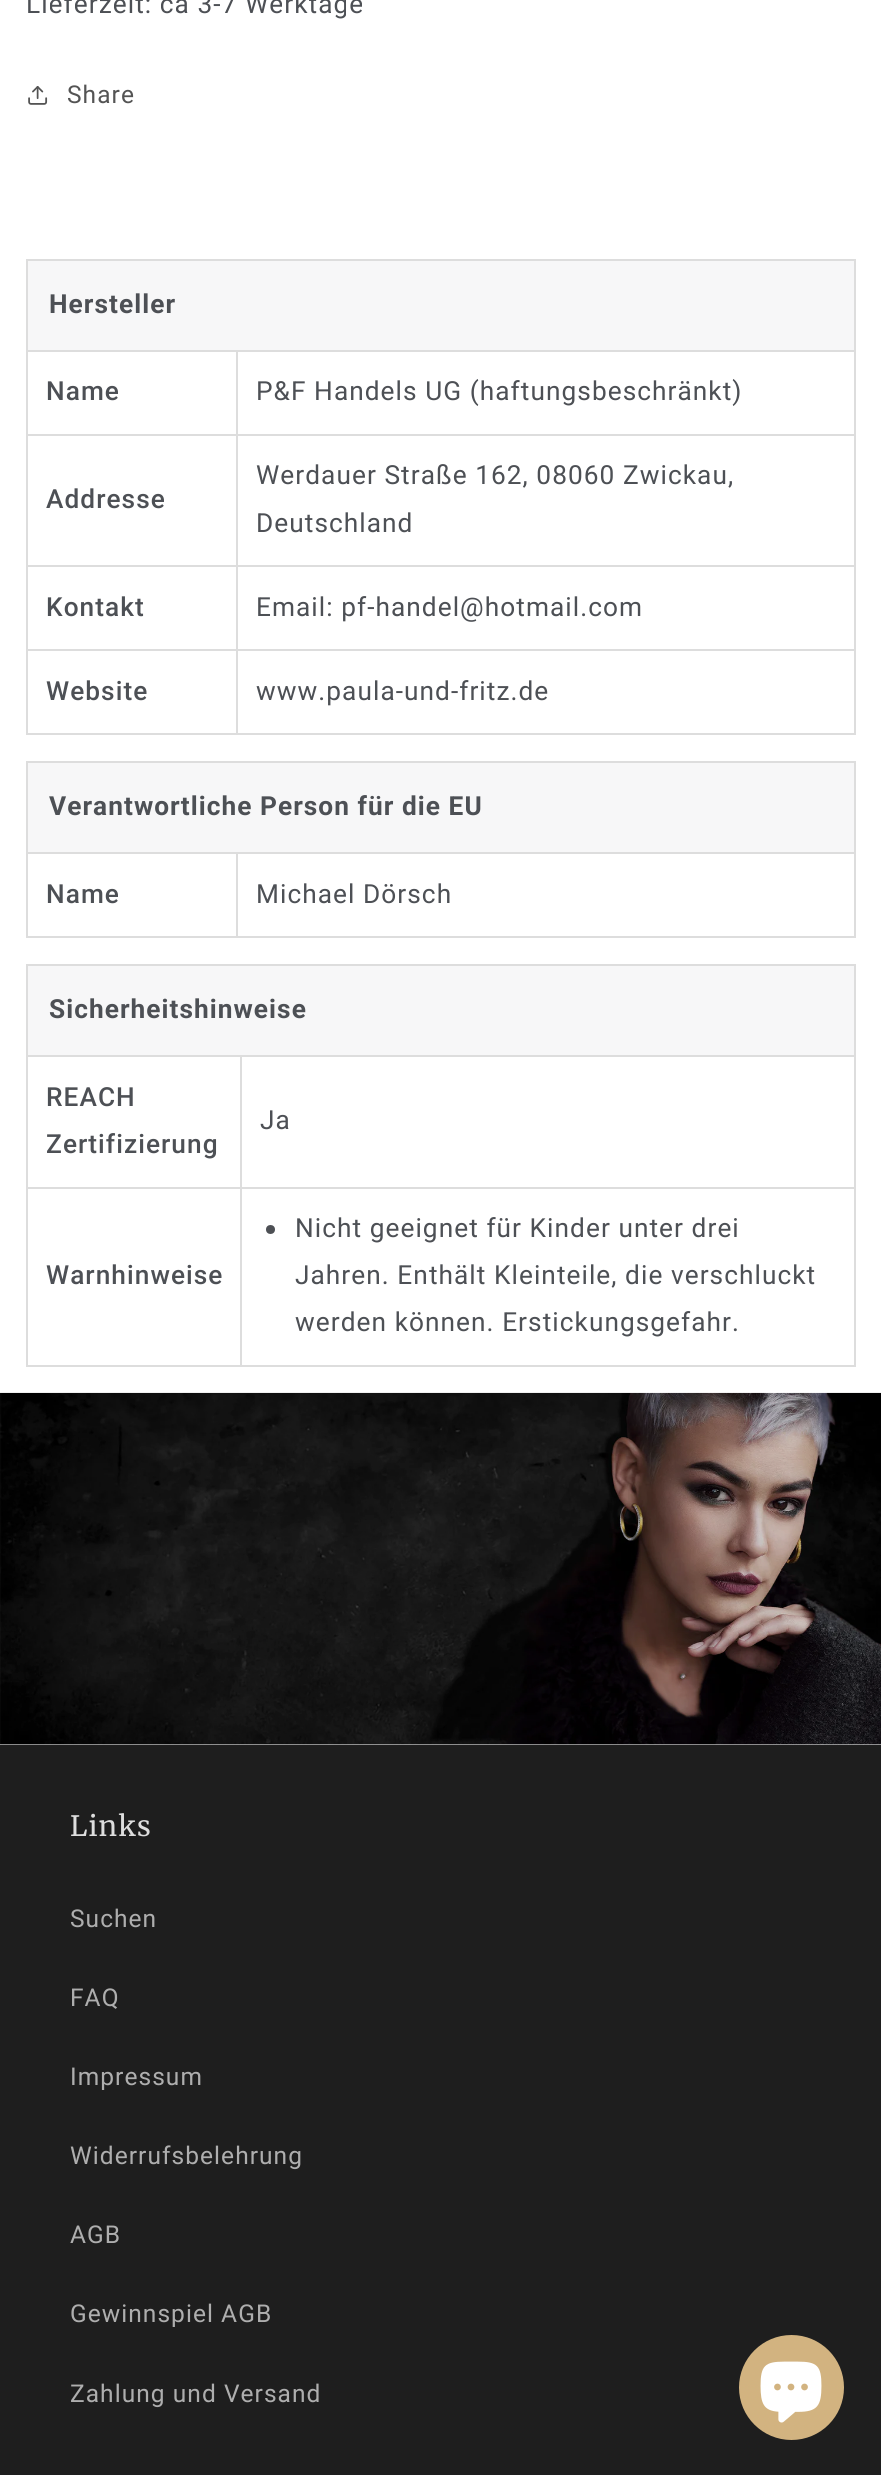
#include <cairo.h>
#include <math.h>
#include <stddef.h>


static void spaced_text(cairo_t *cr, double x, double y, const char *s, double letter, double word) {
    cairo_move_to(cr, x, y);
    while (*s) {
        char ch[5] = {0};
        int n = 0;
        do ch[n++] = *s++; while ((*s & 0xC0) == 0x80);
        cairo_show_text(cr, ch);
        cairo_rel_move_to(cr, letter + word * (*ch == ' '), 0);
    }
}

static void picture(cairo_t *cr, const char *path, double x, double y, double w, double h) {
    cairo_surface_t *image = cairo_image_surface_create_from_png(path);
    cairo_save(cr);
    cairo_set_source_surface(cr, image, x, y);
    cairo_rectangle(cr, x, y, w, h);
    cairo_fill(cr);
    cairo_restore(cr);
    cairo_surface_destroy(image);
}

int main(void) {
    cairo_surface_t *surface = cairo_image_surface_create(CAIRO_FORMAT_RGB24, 881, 2475);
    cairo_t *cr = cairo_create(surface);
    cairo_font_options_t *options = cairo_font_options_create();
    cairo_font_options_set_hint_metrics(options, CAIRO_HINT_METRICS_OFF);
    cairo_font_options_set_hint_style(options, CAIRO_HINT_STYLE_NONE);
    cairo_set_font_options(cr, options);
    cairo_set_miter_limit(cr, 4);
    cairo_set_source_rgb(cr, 1, 1, 1);
    cairo_paint(cr);
    cairo_select_font_face(cr, "Roboto", CAIRO_FONT_SLANT_NORMAL, CAIRO_FONT_WEIGHT_NORMAL);
    cairo_set_font_size(cr, 26.25);
    cairo_set_source_rgb(cr, 0.302, 0.314, 0.333);
    spaced_text(cr, 26, 13, "Lieferzeit: ca 3-7 Werktage", 1.05, 0);
    picture(cr, "img1.png", 28, 86, 20, 19);
    cairo_set_font_size(cr, 24.5);
    cairo_set_source_rgb(cr, 0.329, 0.329, 0.329);
    spaced_text(cr, 67, 103, "Share", 1.05, 0);
    cairo_set_source_rgb(cr, 0.965, 0.965, 0.969);
    cairo_rectangle(cr, 28, 261, 826, 89);
    cairo_fill(cr);
    cairo_set_source_rgb(cr, 0.867, 0.867, 0.867);
    cairo_rectangle(cr, 26, 259, 830, 2);
    cairo_fill(cr);
    cairo_rectangle(cr, 236, 350, 620, 2);
    cairo_fill(cr);
    cairo_rectangle(cr, 236, 434, 620, 2);
    cairo_fill(cr);
    cairo_rectangle(cr, 236, 565, 620, 2);
    cairo_fill(cr);
    cairo_rectangle(cr, 236, 649, 620, 2);
    cairo_fill(cr);
    cairo_rectangle(cr, 854, 649, 2, 86);
    cairo_fill(cr);
    cairo_rectangle(cr, 854, 565, 2, 86);
    cairo_fill(cr);
    cairo_rectangle(cr, 854, 434, 2, 133);
    cairo_fill(cr);
    cairo_rectangle(cr, 854, 350, 2, 86);
    cairo_fill(cr);
    cairo_rectangle(cr, 854, 259, 2, 93);
    cairo_fill(cr);
    cairo_rectangle(cr, 236, 733, 620, 2);
    cairo_fill(cr);
    cairo_rectangle(cr, 236, 649, 2, 86);
    cairo_fill(cr);
    cairo_rectangle(cr, 26, 649, 212, 2);
    cairo_fill(cr);
    cairo_rectangle(cr, 236, 565, 2, 86);
    cairo_fill(cr);
    cairo_rectangle(cr, 26, 565, 212, 2);
    cairo_fill(cr);
    cairo_rectangle(cr, 236, 434, 2, 133);
    cairo_fill(cr);
    cairo_rectangle(cr, 26, 434, 212, 2);
    cairo_fill(cr);
    cairo_rectangle(cr, 236, 350, 2, 86);
    cairo_fill(cr);
    cairo_rectangle(cr, 26, 350, 212, 2);
    cairo_fill(cr);
    cairo_rectangle(cr, 26, 733, 212, 2);
    cairo_fill(cr);
    cairo_rectangle(cr, 26, 649, 2, 86);
    cairo_fill(cr);
    cairo_rectangle(cr, 26, 565, 2, 86);
    cairo_fill(cr);
    cairo_rectangle(cr, 26, 434, 2, 133);
    cairo_fill(cr);
    cairo_rectangle(cr, 26, 350, 2, 86);
    cairo_fill(cr);
    cairo_rectangle(cr, 26, 259, 2, 93);
    cairo_fill(cr);
    cairo_select_font_face(cr, "Roboto", CAIRO_FONT_SLANT_NORMAL, CAIRO_FONT_WEIGHT_BOLD);
    cairo_set_font_size(cr, 26.25);
    cairo_set_source_rgb(cr, 0.302, 0.314, 0.333);
    spaced_text(cr, 49, 313, "Hersteller", 1.05, 0);
    cairo_select_font_face(cr, "Roboto Medium", CAIRO_FONT_SLANT_NORMAL, CAIRO_FONT_WEIGHT_NORMAL);
    spaced_text(cr, 46, 400, "Name", 1.05, 0);
    cairo_select_font_face(cr, "Roboto", CAIRO_FONT_SLANT_NORMAL, CAIRO_FONT_WEIGHT_NORMAL);
    spaced_text(cr, 256, 400, "P&F Handels UG (haftungsbeschränkt)", 1.05, 0);
    cairo_select_font_face(cr, "Roboto Medium", CAIRO_FONT_SLANT_NORMAL, CAIRO_FONT_WEIGHT_NORMAL);
    spaced_text(cr, 46, 508, "Addresse", 1.05, 0);
    cairo_select_font_face(cr, "Roboto", CAIRO_FONT_SLANT_NORMAL, CAIRO_FONT_WEIGHT_NORMAL);
    spaced_text(cr, 256, 484, "Werdauer Straße 162, 08060 Zwickau,", 1.05, 0);
    spaced_text(cr, 256, 532, "Deutschland", 1.05, 0);
    cairo_select_font_face(cr, "Roboto Medium", CAIRO_FONT_SLANT_NORMAL, CAIRO_FONT_WEIGHT_NORMAL);
    spaced_text(cr, 46, 616, "Kontakt", 1.05, 0);
    cairo_select_font_face(cr, "Roboto", CAIRO_FONT_SLANT_NORMAL, CAIRO_FONT_WEIGHT_NORMAL);
    spaced_text(cr, 256, 616, "Email: pf-handel@hotmail.com", 1.05, 0);
    cairo_select_font_face(cr, "Roboto Medium", CAIRO_FONT_SLANT_NORMAL, CAIRO_FONT_WEIGHT_NORMAL);
    spaced_text(cr, 46, 700, "Website", 1.05, 0);
    cairo_select_font_face(cr, "Roboto", CAIRO_FONT_SLANT_NORMAL, CAIRO_FONT_WEIGHT_NORMAL);
    spaced_text(cr, 256, 700, "www.paula-und-fritz.de", 1.05, 0);
    cairo_set_source_rgb(cr, 0.965, 0.965, 0.969);
    cairo_rectangle(cr, 28, 763, 826, 89);
    cairo_fill(cr);
    cairo_set_source_rgb(cr, 0.867, 0.867, 0.867);
    cairo_rectangle(cr, 26, 761, 830, 2);
    cairo_fill(cr);
    cairo_rectangle(cr, 236, 852, 620, 2);
    cairo_fill(cr);
    cairo_rectangle(cr, 854, 852, 2, 86);
    cairo_fill(cr);
    cairo_rectangle(cr, 854, 761, 2, 93);
    cairo_fill(cr);
    cairo_rectangle(cr, 236, 936, 620, 2);
    cairo_fill(cr);
    cairo_rectangle(cr, 236, 852, 2, 86);
    cairo_fill(cr);
    cairo_rectangle(cr, 26, 852, 212, 2);
    cairo_fill(cr);
    cairo_rectangle(cr, 26, 936, 212, 2);
    cairo_fill(cr);
    cairo_rectangle(cr, 26, 852, 2, 86);
    cairo_fill(cr);
    cairo_rectangle(cr, 26, 761, 2, 93);
    cairo_fill(cr);
    cairo_select_font_face(cr, "Roboto", CAIRO_FONT_SLANT_NORMAL, CAIRO_FONT_WEIGHT_BOLD);
    cairo_set_source_rgb(cr, 0.302, 0.314, 0.333);
    spaced_text(cr, 49, 815, "Verantwortliche Person für die EU", 1.05, 0);
    cairo_select_font_face(cr, "Roboto Medium", CAIRO_FONT_SLANT_NORMAL, CAIRO_FONT_WEIGHT_NORMAL);
    spaced_text(cr, 46, 903, "Name", 1.05, 0);
    cairo_select_font_face(cr, "Roboto", CAIRO_FONT_SLANT_NORMAL, CAIRO_FONT_WEIGHT_NORMAL);
    spaced_text(cr, 256, 903, "Michael Dörsch", 1.05, 0);
    cairo_set_source_rgb(cr, 0.965, 0.965, 0.969);
    cairo_rectangle(cr, 28, 966, 826, 89);
    cairo_fill(cr);
    cairo_set_source_rgb(cr, 0.867, 0.867, 0.867);
    cairo_rectangle(cr, 26, 964, 830, 2);
    cairo_fill(cr);
    cairo_rectangle(cr, 240, 1055, 616, 2);
    cairo_fill(cr);
    cairo_rectangle(cr, 240, 1187, 616, 2);
    cairo_fill(cr);
    cairo_rectangle(cr, 854, 1187, 2, 180);
    cairo_fill(cr);
    cairo_rectangle(cr, 854, 1055, 2, 133);
    cairo_fill(cr);
    cairo_rectangle(cr, 854, 964, 2, 93);
    cairo_fill(cr);
    cairo_rectangle(cr, 240, 1365, 616, 2);
    cairo_fill(cr);
    cairo_rectangle(cr, 240, 1187, 2, 180);
    cairo_fill(cr);
    cairo_rectangle(cr, 26, 1187, 216, 2);
    cairo_fill(cr);
    cairo_rectangle(cr, 240, 1055, 2, 133);
    cairo_fill(cr);
    cairo_rectangle(cr, 26, 1055, 216, 2);
    cairo_fill(cr);
    cairo_rectangle(cr, 26, 1365, 216, 2);
    cairo_fill(cr);
    cairo_rectangle(cr, 26, 1187, 2, 180);
    cairo_fill(cr);
    cairo_rectangle(cr, 26, 1055, 2, 133);
    cairo_fill(cr);
    cairo_rectangle(cr, 26, 964, 2, 93);
    cairo_fill(cr);
    cairo_select_font_face(cr, "Roboto", CAIRO_FONT_SLANT_NORMAL, CAIRO_FONT_WEIGHT_BOLD);
    cairo_set_source_rgb(cr, 0.302, 0.314, 0.333);
    spaced_text(cr, 49, 1018, "Sicherheitshinweise", 1.05, 0);
    cairo_select_font_face(cr, "Roboto Medium", CAIRO_FONT_SLANT_NORMAL, CAIRO_FONT_WEIGHT_NORMAL);
    spaced_text(cr, 46, 1106, "REACH", 1.05, 0);
    spaced_text(cr, 46, 1153, "Zertifizierung", 1.05, 0);
    cairo_select_font_face(cr, "Roboto", CAIRO_FONT_SLANT_NORMAL, CAIRO_FONT_WEIGHT_NORMAL);
    spaced_text(cr, 260, 1129, "Ja", 1.05, 0);
    cairo_select_font_face(cr, "Roboto Medium", CAIRO_FONT_SLANT_NORMAL, CAIRO_FONT_WEIGHT_NORMAL);
    spaced_text(cr, 46, 1284, "Warnhinweise", 1.05, 0);
    cairo_new_path(cr);
    cairo_arc(cr, 270.5, 1229.5, 4.5, 0, 2 * M_PI);
    cairo_fill(cr);
    cairo_select_font_face(cr, "Roboto", CAIRO_FONT_SLANT_NORMAL, CAIRO_FONT_WEIGHT_NORMAL);
    spaced_text(cr, 295, 1237, "Nicht geeignet für Kinder unter drei", 1.05, 0);
    spaced_text(cr, 295, 1284, "Jahren. Enthält Kleinteile, die verschluckt", 1.05, 0);
    spaced_text(cr, 295, 1331, "werden können. Erstickungsgefahr.", 1.05, 0);
    cairo_set_source_rgb(cr, 0.729, 0.729, 0.729);
    cairo_rectangle(cr, 0, 1744, 881, 1);
    cairo_fill(cr);
    picture(cr, "img2.png", 0, 1392, 881, 353);
    cairo_set_source_rgb(cr, 0.118, 0.118, 0.118);
    cairo_rectangle(cr, 0, 1745, 881, 730);
    cairo_fill(cr);
    cairo_select_font_face(cr, "Merriweather", CAIRO_FONT_SLANT_NORMAL, CAIRO_FONT_WEIGHT_NORMAL);
    cairo_set_font_size(cr, 28);
    cairo_set_source_rgb(cr, 0.871, 0.871, 0.871);
    spaced_text(cr, 70, 1836, "Links", 1.05, 0);
    cairo_select_font_face(cr, "Roboto", CAIRO_FONT_SLANT_NORMAL, CAIRO_FONT_WEIGHT_NORMAL);
    cairo_set_font_size(cr, 24.5);
    cairo_set_source_rgb(cr, 0.682, 0.682, 0.682);
    spaced_text(cr, 70, 1927, "Suchen", 1.05, 0);
    spaced_text(cr, 70, 2006, "FAQ", 1.05, 0);
    spaced_text(cr, 70, 2085, "Impressum", 1.05, 0);
    spaced_text(cr, 70, 2164, "Widerrufsbelehrung", 1.05, 0);
    spaced_text(cr, 70, 2243, "AGB", 1.05, 0);
    spaced_text(cr, 70, 2322, "Gewinnspiel AGB", 1.05, 0);
    spaced_text(cr, 70, 2402, "Zahlung und Versand", 1.05, 0);
    cairo_set_source_rgb(cr, 0.824, 0.702, 0.502);
    cairo_new_path(cr);
    cairo_arc(cr, 791.5, 2387.5, 52.5, 0, 2 * M_PI);
    cairo_fill(cr);
    picture(cr, "img3.png", 760, 2361, 62, 62);
    cairo_surface_write_to_png(surface, "page.png");
    cairo_font_options_destroy(options);
    cairo_destroy(cr);
    cairo_surface_destroy(surface);
    return 0;
}
